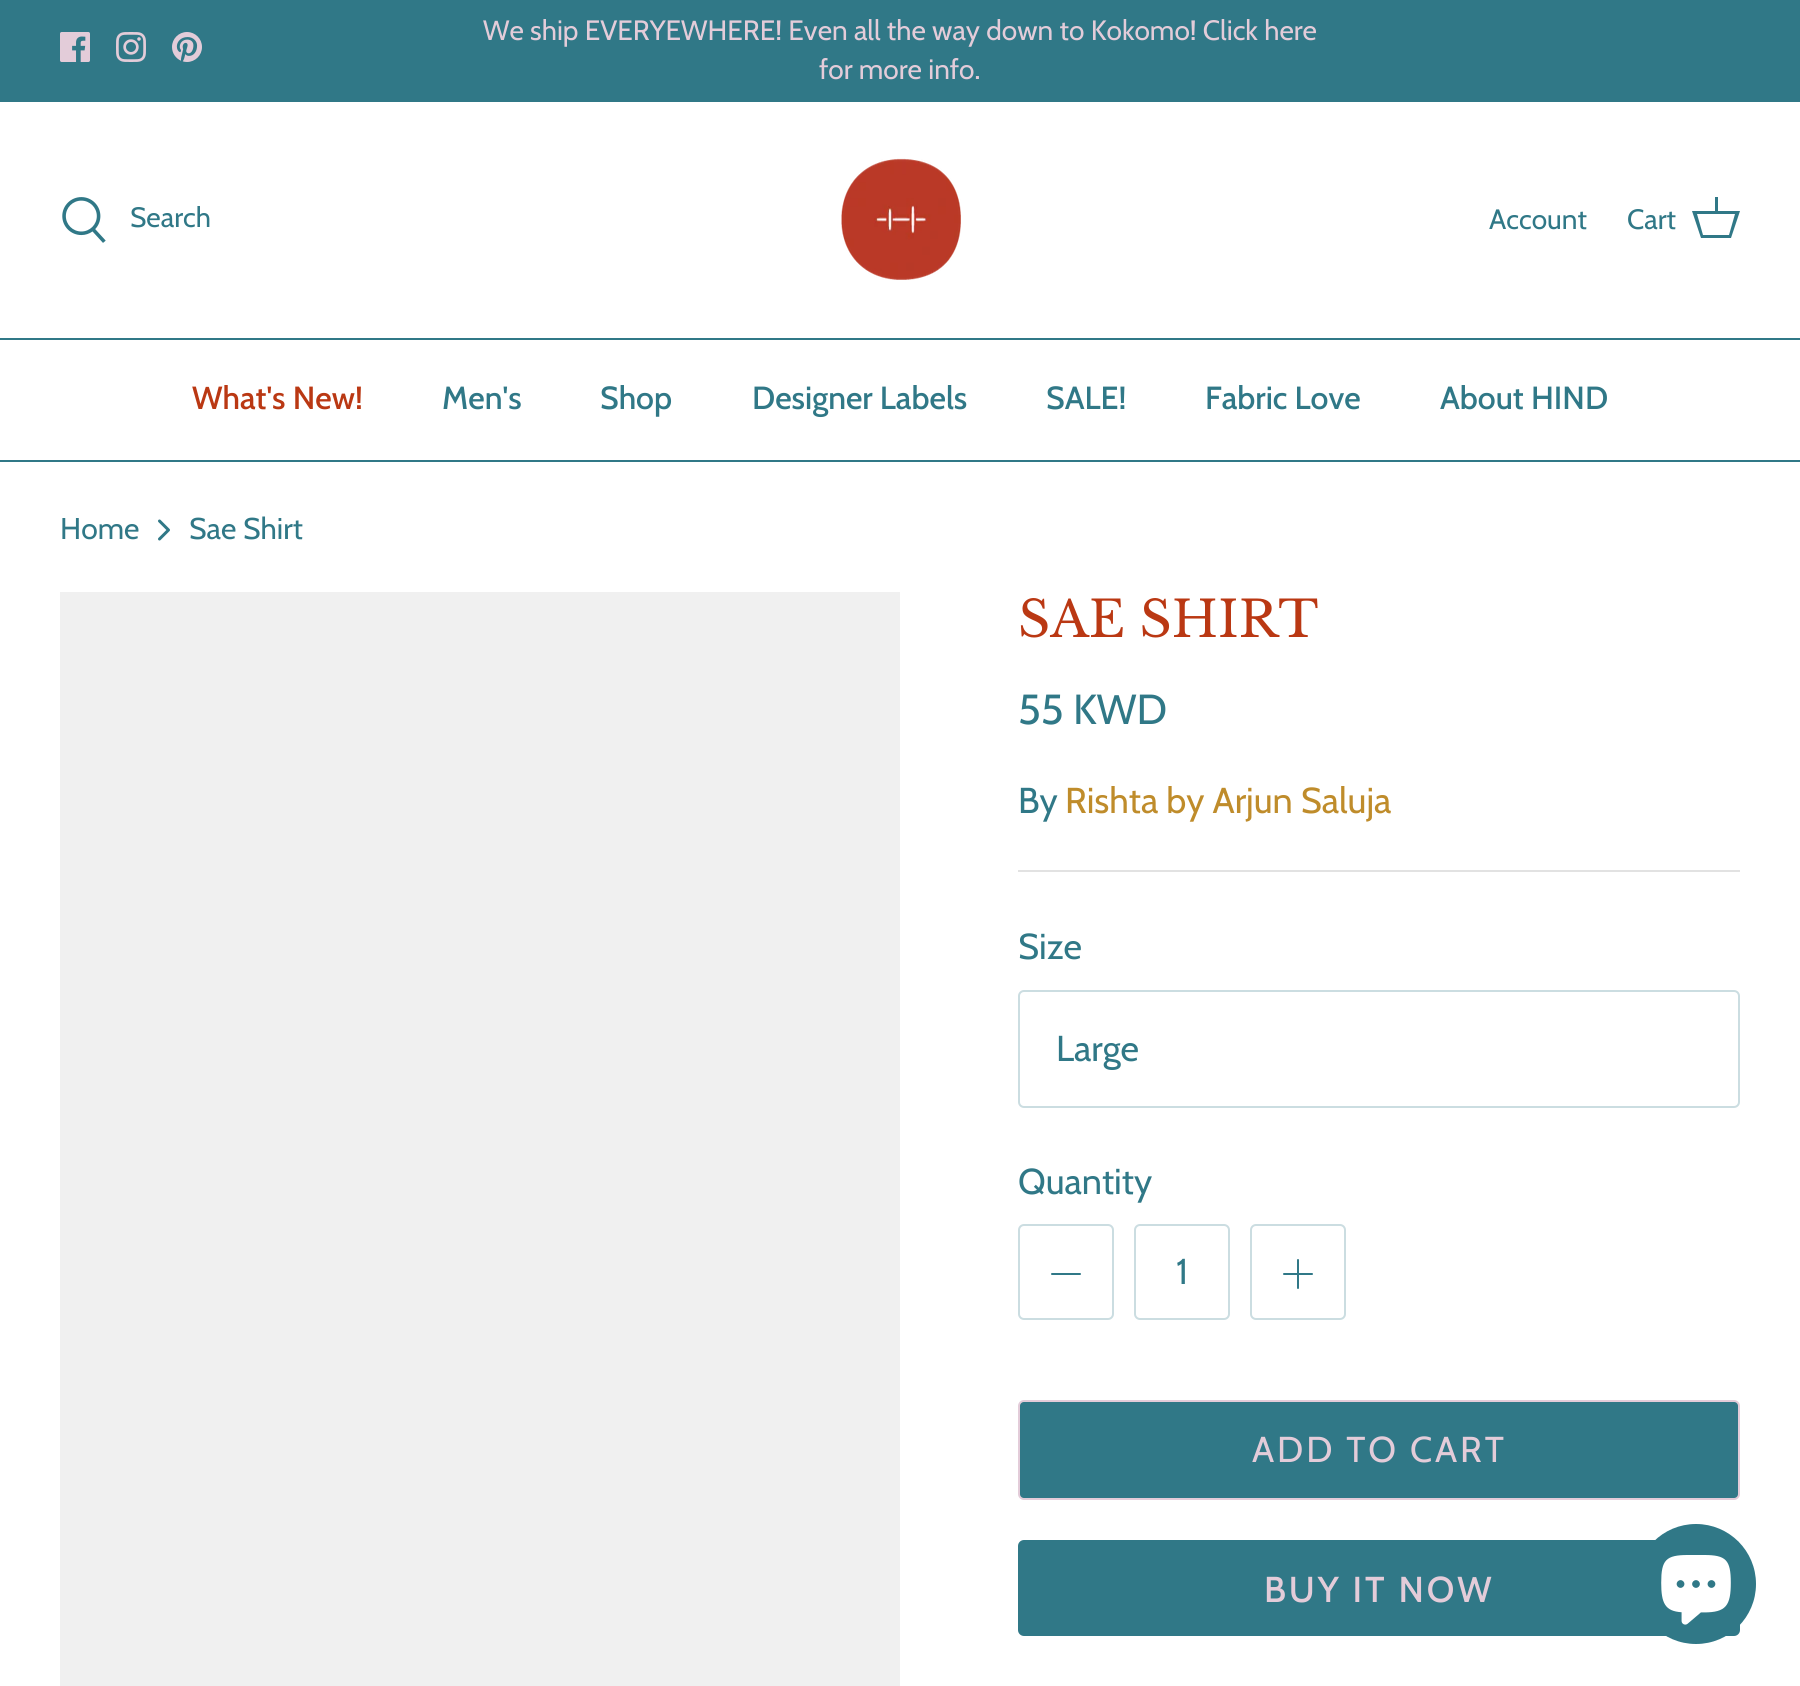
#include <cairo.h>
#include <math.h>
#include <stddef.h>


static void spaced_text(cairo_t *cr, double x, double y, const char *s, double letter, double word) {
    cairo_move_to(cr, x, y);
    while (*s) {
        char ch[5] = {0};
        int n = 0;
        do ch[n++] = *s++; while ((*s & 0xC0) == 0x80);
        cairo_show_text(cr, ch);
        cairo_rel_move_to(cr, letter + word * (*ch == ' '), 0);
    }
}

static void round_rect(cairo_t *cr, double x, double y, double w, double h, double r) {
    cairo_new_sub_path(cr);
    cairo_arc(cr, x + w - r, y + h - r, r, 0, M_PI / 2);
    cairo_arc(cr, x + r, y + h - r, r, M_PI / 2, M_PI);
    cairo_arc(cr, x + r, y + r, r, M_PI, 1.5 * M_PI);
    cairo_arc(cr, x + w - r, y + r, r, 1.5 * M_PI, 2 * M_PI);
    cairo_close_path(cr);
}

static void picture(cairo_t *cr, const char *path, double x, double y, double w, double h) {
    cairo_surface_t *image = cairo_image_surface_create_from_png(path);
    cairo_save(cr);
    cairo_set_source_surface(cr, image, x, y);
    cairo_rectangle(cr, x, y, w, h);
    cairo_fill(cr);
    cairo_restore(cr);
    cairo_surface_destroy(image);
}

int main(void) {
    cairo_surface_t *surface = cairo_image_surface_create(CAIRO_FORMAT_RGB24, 1800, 1686);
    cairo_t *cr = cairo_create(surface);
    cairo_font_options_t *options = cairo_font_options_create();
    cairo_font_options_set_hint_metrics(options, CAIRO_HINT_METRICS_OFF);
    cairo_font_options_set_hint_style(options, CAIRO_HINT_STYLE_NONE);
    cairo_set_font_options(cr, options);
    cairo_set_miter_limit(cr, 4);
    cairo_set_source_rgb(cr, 1, 1, 1);
    cairo_paint(cr);
    cairo_set_source_rgb(cr, 0.188, 0.471, 0.529);
    cairo_rectangle(cr, 0, 0, 1800, 102);
    cairo_fill(cr);
    picture(cr, "img1.png", 60, 32, 30, 30);
    picture(cr, "img2.png", 116, 32, 30, 30);
    picture(cr, "img3.png", 172, 32, 30, 30);
    cairo_select_font_face(cr, "Cabin", CAIRO_FONT_SLANT_NORMAL, CAIRO_FONT_WEIGHT_NORMAL);
    cairo_set_font_size(cr, 28);
    cairo_set_source_rgb(cr, 0.89, 0.8, 0.851);
    cairo_move_to(cr, 483, 40);
    cairo_show_text(cr, "We ship EVERYEWHERE! Even all the way down to Kokomo! Click here");
    cairo_move_to(cr, 819, 79);
    cairo_show_text(cr, "for more info.");
    cairo_set_source_rgb(cr, 0.188, 0.471, 0.529);
    cairo_rectangle(cr, 0, 338, 1800, 2);
    cairo_fill(cr);
    picture(cr, "img4.png", 62, 197, 44, 46);
    cairo_move_to(cr, 130, 227);
    cairo_show_text(cr, "Search");
    picture(cr, "img5.png", 841, 158, 120, 122);
    cairo_move_to(cr, 1489, 229);
    cairo_show_text(cr, "Account");
    cairo_move_to(cr, 1627, 229);
    cairo_show_text(cr, "Cart");
    cairo_new_path(cr);
    cairo_move_to(cr, 1715, 211);
    cairo_line_to(cr, 1715, 197);
    cairo_line_to(cr, 1718, 197);
    cairo_line_to(cr, 1718, 211);
    cairo_line_to(cr, 1740, 211);
    cairo_line_to(cr, 1731, 238);
    cairo_line_to(cr, 1701, 238);
    cairo_line_to(cr, 1692, 211);
    cairo_close_path(cr);
    cairo_move_to(cr, 1697, 214);
    cairo_line_to(cr, 1703, 235);
    cairo_line_to(cr, 1729, 235);
    cairo_line_to(cr, 1735, 214);
    cairo_close_path(cr);
    cairo_fill(cr);
    cairo_rectangle(cr, 0, 460, 1800, 2);
    cairo_fill(cr);
    cairo_select_font_face(cr, "Cabin Medium", CAIRO_FONT_SLANT_NORMAL, CAIRO_FONT_WEIGHT_NORMAL);
    cairo_set_font_size(cr, 32);
    cairo_set_source_rgb(cr, 0.729, 0.22, 0.078);
    cairo_move_to(cr, 192, 409);
    cairo_show_text(cr, "What's New!");
    cairo_set_source_rgb(cr, 0.188, 0.471, 0.529);
    cairo_move_to(cr, 442, 409);
    cairo_show_text(cr, "Men's");
    cairo_move_to(cr, 600, 409);
    cairo_show_text(cr, "Shop");
    cairo_move_to(cr, 752, 409);
    cairo_show_text(cr, "Designer Labels");
    cairo_move_to(cr, 1046, 409);
    cairo_show_text(cr, "SALE!");
    cairo_move_to(cr, 1205, 409);
    cairo_show_text(cr, "Fabric Love");
    cairo_move_to(cr, 1440, 409);
    cairo_show_text(cr, "About HIND");
    cairo_select_font_face(cr, "Cabin", CAIRO_FONT_SLANT_NORMAL, CAIRO_FONT_WEIGHT_NORMAL);
    cairo_set_font_size(cr, 30);
    cairo_move_to(cr, 60, 539);
    cairo_show_text(cr, "Home");
    cairo_new_path(cr);
    cairo_move_to(cr, 159.5, 539);
    cairo_line_to(cr, 168.5, 530);
    cairo_line_to(cr, 159.5, 521);
    cairo_set_line_width(cr, 3);
    cairo_set_line_cap(cr, CAIRO_LINE_CAP_ROUND);
    cairo_set_line_join(cr, CAIRO_LINE_JOIN_ROUND);
    cairo_stroke(cr);
    cairo_move_to(cr, 189, 539);
    cairo_show_text(cr, "Sae Shirt");
    cairo_set_source_rgb(cr, 0.941, 0.941, 0.941);
    cairo_rectangle(cr, 60, 592, 840, 1094);
    cairo_fill(cr);
    cairo_select_font_face(cr, "Libre Baskerville", CAIRO_FONT_SLANT_NORMAL, CAIRO_FONT_WEIGHT_NORMAL);
    cairo_set_font_size(cr, 50);
    cairo_set_source_rgb(cr, 0.729, 0.22, 0.078);
    cairo_move_to(cr, 1018, 637);
    cairo_show_text(cr, "SAE SHIRT");
    cairo_select_font_face(cr, "Cabin", CAIRO_FONT_SLANT_NORMAL, CAIRO_FONT_WEIGHT_NORMAL);
    cairo_set_font_size(cr, 42);
    cairo_set_source_rgb(cr, 0.188, 0.471, 0.529);
    cairo_move_to(cr, 1018, 724);
    cairo_show_text(cr, "55 KWD");
    cairo_set_font_size(cr, 36);
    cairo_move_to(cr, 1018, 813);
    cairo_show_text(cr, "By");
    cairo_set_source_rgb(cr, 0.749, 0.549, 0.169);
    cairo_move_to(cr, 1065, 813);
    cairo_show_text(cr, "Rishta by Arjun Saluja");
    cairo_set_source_rgb(cr, 0.886, 0.886, 0.886);
    cairo_rectangle(cr, 1018, 870, 722, 2);
    cairo_fill(cr);
    cairo_set_source_rgb(cr, 0.188, 0.471, 0.529);
    cairo_move_to(cr, 1018, 959);
    cairo_show_text(cr, "Size");
    round_rect(cr, 1019, 991, 720, 116, 5);
    cairo_set_source_rgb(cr, 0.796, 0.867, 0.882);
    cairo_set_line_width(cr, 2);
    cairo_set_line_cap(cr, CAIRO_LINE_CAP_BUTT);
    cairo_set_line_join(cr, CAIRO_LINE_JOIN_MITER);
    cairo_stroke(cr);
    cairo_set_source_rgb(cr, 0.188, 0.471, 0.529);
    cairo_move_to(cr, 1056, 1061);
    cairo_show_text(cr, "Large");
    cairo_move_to(cr, 1018, 1194);
    cairo_show_text(cr, "Quantity");
    round_rect(cr, 1019, 1225, 94, 94, 5);
    cairo_set_source_rgb(cr, 0.796, 0.867, 0.882);
    cairo_stroke(cr);
    cairo_new_path(cr);
    cairo_move_to(cr, 1052, 1274);
    cairo_line_to(cr, 1080, 1274);
    cairo_set_source_rgb(cr, 0.188, 0.471, 0.529);
    cairo_set_line_cap(cr, CAIRO_LINE_CAP_ROUND);
    cairo_set_line_join(cr, CAIRO_LINE_JOIN_ROUND);
    cairo_stroke(cr);
    round_rect(cr, 1135, 1225, 94, 94, 5);
    cairo_set_source_rgb(cr, 0.796, 0.867, 0.882);
    cairo_set_line_cap(cr, CAIRO_LINE_CAP_BUTT);
    cairo_set_line_join(cr, CAIRO_LINE_JOIN_MITER);
    cairo_stroke(cr);
    cairo_set_source_rgb(cr, 0.188, 0.471, 0.529);
    cairo_move_to(cr, 1176, 1284);
    cairo_show_text(cr, "1");
    round_rect(cr, 1251, 1225, 94, 94, 5);
    cairo_set_source_rgb(cr, 0.796, 0.867, 0.882);
    cairo_stroke(cr);
    cairo_new_path(cr);
    cairo_move_to(cr, 1298, 1260);
    cairo_line_to(cr, 1298, 1288);
    cairo_move_to(cr, 1284, 1274);
    cairo_line_to(cr, 1312, 1274);
    cairo_set_source_rgb(cr, 0.188, 0.471, 0.529);
    cairo_set_line_cap(cr, CAIRO_LINE_CAP_ROUND);
    cairo_set_line_join(cr, CAIRO_LINE_JOIN_ROUND);
    cairo_stroke(cr);
    round_rect(cr, 1019, 1401, 720, 98, 5);
    cairo_fill_preserve(cr);
    cairo_set_source_rgb(cr, 0.89, 0.8, 0.851);
    cairo_set_line_cap(cr, CAIRO_LINE_CAP_BUTT);
    cairo_set_line_join(cr, CAIRO_LINE_JOIN_MITER);
    cairo_stroke(cr);
    spaced_text(cr, 1252, 1462, "ADD TO CART", 2.9, 0);
    cairo_set_source_rgb(cr, 0.188, 0.471, 0.529);
    round_rect(cr, 1019, 1541, 720, 94, 5);
    cairo_fill_preserve(cr);
    cairo_stroke(cr);
    cairo_select_font_face(cr, "Cabin Medium", CAIRO_FONT_SLANT_NORMAL, CAIRO_FONT_WEIGHT_NORMAL);
    cairo_set_source_rgb(cr, 0.89, 0.8, 0.851);
    spaced_text(cr, 1264, 1602, "BUY IT NOW", 2.9, 0);
    cairo_set_source_rgb(cr, 0.188, 0.471, 0.529);
    cairo_new_path(cr);
    cairo_arc(cr, 1696, 1584, 60, 0, 2 * M_PI);
    cairo_fill(cr);
    picture(cr, "img6.png", 1661, 1555, 70, 70);
    cairo_surface_write_to_png(surface, "page.png");
    cairo_font_options_destroy(options);
    cairo_destroy(cr);
    cairo_surface_destroy(surface);
    return 0;
}
